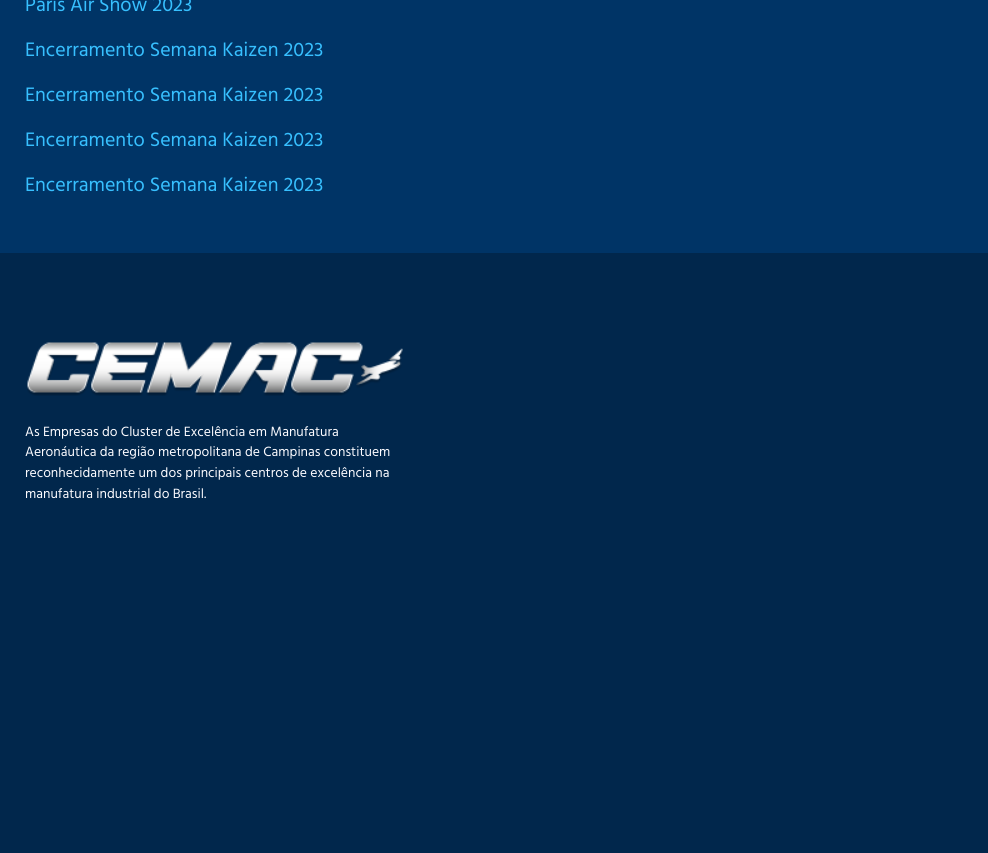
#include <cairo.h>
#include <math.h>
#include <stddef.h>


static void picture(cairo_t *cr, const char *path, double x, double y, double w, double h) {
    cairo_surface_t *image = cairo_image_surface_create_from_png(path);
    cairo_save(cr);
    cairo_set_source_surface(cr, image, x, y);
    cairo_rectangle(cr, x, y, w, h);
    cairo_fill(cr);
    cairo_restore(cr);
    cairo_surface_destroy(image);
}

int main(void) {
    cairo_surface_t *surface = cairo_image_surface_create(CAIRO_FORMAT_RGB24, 988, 853);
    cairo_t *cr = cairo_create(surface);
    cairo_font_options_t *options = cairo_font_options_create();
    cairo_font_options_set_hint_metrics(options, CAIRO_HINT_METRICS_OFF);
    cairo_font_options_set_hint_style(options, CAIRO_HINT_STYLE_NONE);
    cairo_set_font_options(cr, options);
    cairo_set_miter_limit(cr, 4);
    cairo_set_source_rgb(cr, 0, 0.204, 0.4);
    cairo_paint(cr);
    cairo_select_font_face(cr, "Hind", CAIRO_FONT_SLANT_NORMAL, CAIRO_FONT_WEIGHT_NORMAL);
    cairo_set_font_size(cr, 20);
    cairo_set_source_rgb(cr, 0.216, 0.753, 1);
    cairo_move_to(cr, 25, 11);
    cairo_show_text(cr, "Paris Air Show 2023");
    cairo_move_to(cr, 25, 56);
    cairo_show_text(cr, "Encerramento Semana Kaizen 2023");
    cairo_move_to(cr, 25, 101);
    cairo_show_text(cr, "Encerramento Semana Kaizen 2023");
    cairo_move_to(cr, 25, 146);
    cairo_show_text(cr, "Encerramento Semana Kaizen 2023");
    cairo_move_to(cr, 25, 191);
    cairo_show_text(cr, "Encerramento Semana Kaizen 2023");
    cairo_set_source_rgb(cr, 0.004, 0.153, 0.298);
    cairo_rectangle(cr, 0, 253, 988, 600);
    cairo_fill(cr);
    picture(cr, "img1.png", 27, 342, 376, 54);
    cairo_set_font_size(cr, 13.75);
    cairo_set_source_rgb(cr, 0.988, 0.984, 1);
    cairo_move_to(cr, 25, 436);
    cairo_show_text(cr, "As Empresas do Cluster de Excelência em Manufatura");
    cairo_move_to(cr, 25, 456);
    cairo_show_text(cr, "Aeronáutica da região metropolitana de Campinas constituem");
    cairo_move_to(cr, 25, 477);
    cairo_show_text(cr, "reconhecidamente um dos principais centros de excelência na");
    cairo_move_to(cr, 25, 498);
    cairo_show_text(cr, "manufatura industrial do Brasil.");
    cairo_surface_write_to_png(surface, "page.png");
    cairo_font_options_destroy(options);
    cairo_destroy(cr);
    cairo_surface_destroy(surface);
    return 0;
}
